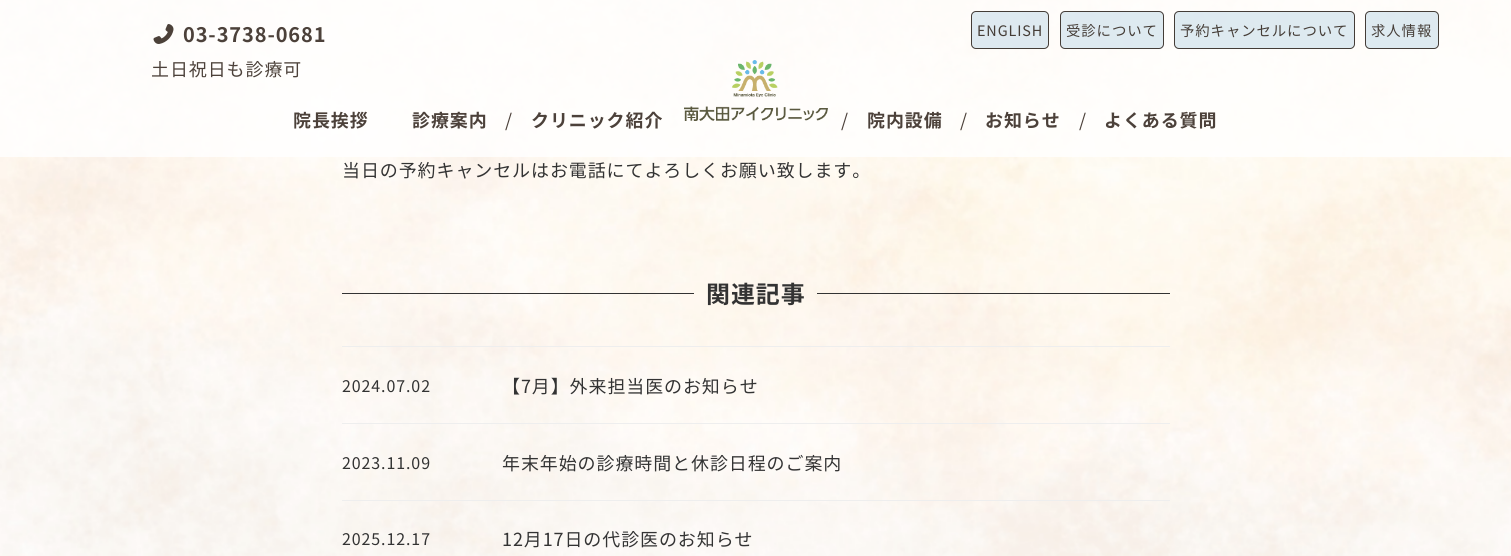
#include <cairo.h>
#include <math.h>
#include <stddef.h>


static void spaced_text(cairo_t *cr, double x, double y, const char *s, double letter, double word) {
    cairo_move_to(cr, x, y);
    while (*s) {
        char ch[5] = {0};
        int n = 0;
        do ch[n++] = *s++; while ((*s & 0xC0) == 0x80);
        cairo_show_text(cr, ch);
        cairo_rel_move_to(cr, letter + word * (*ch == ' '), 0);
    }
}

static void round_rect(cairo_t *cr, double x, double y, double w, double h, double r) {
    cairo_new_sub_path(cr);
    cairo_arc(cr, x + w - r, y + h - r, r, 0, M_PI / 2);
    cairo_arc(cr, x + r, y + h - r, r, M_PI / 2, M_PI);
    cairo_arc(cr, x + r, y + r, r, M_PI, 1.5 * M_PI);
    cairo_arc(cr, x + w - r, y + r, r, 1.5 * M_PI, 2 * M_PI);
    cairo_close_path(cr);
}

static void picture(cairo_t *cr, const char *path, double x, double y, double w, double h) {
    cairo_surface_t *image = cairo_image_surface_create_from_png(path);
    cairo_save(cr);
    cairo_set_source_surface(cr, image, x, y);
    cairo_rectangle(cr, x, y, w, h);
    cairo_fill(cr);
    cairo_restore(cr);
    cairo_surface_destroy(image);
}

int main(void) {
    cairo_surface_t *surface = cairo_image_surface_create(CAIRO_FORMAT_RGB24, 1511, 556);
    cairo_t *cr = cairo_create(surface);
    cairo_font_options_t *options = cairo_font_options_create();
    cairo_font_options_set_hint_metrics(options, CAIRO_HINT_METRICS_OFF);
    cairo_font_options_set_hint_style(options, CAIRO_HINT_STYLE_NONE);
    cairo_set_font_options(cr, options);
    cairo_set_miter_limit(cr, 4);
    cairo_set_source_rgb(cr, 1, 1, 1);
    cairo_paint(cr);
    picture(cr, "img1.png", 0, 0, 1511, 556);
    cairo_set_source_rgba(cr, 1, 1, 1, 0.8);
    cairo_rectangle(cr, 0, 0, 1511, 157);
    cairo_fill(cr);
    picture(cr, "img2.png", 153, 24, 21, 20);
    cairo_select_font_face(cr, "Noto Sans JP", CAIRO_FONT_SLANT_NORMAL, CAIRO_FONT_WEIGHT_BOLD);
    cairo_set_font_size(cr, 20);
    cairo_set_source_rgb(cr, 0.298, 0.255, 0.227);
    spaced_text(cr, 183, 42, "03-3738-0681", 0.9, 0);
    cairo_select_font_face(cr, "Noto Sans JP", CAIRO_FONT_SLANT_NORMAL, CAIRO_FONT_WEIGHT_NORMAL);
    cairo_set_font_size(cr, 18);
    spaced_text(cr, 151, 76, "土日祝日も診療可", 0.9, 0);
    picture(cr, "img3.png", 684, 60, 144, 61);
    cairo_set_source_rgba(cr, 0.835, 0.894, 0.929, 0.8);
    round_rect(cr, 971, 11, 78, 38, 5);
    cairo_fill(cr);
    round_rect(cr, 971.5, 11.5, 77, 37, 4.5);
    cairo_set_source_rgba(cr, 0.122, 0.071, 0.035, 0.8);
    cairo_set_line_width(cr, 1);
    cairo_stroke(cr);
    cairo_set_font_size(cr, 14.4);
    cairo_set_source_rgb(cr, 0.271, 0.239, 0.216);
    spaced_text(cr, 977, 36, "ENGLISH", 0.9, 0);
    cairo_set_source_rgba(cr, 0.835, 0.894, 0.929, 0.8);
    round_rect(cr, 1060, 11, 104, 38, 5);
    cairo_fill(cr);
    round_rect(cr, 1060.5, 11.5, 103, 37, 4.5);
    cairo_set_source_rgba(cr, 0.122, 0.071, 0.035, 0.8);
    cairo_stroke(cr);
    cairo_set_source_rgb(cr, 0.271, 0.239, 0.216);
    spaced_text(cr, 1066, 36, "受診について", 0.9, 0);
    cairo_set_source_rgba(cr, 0.835, 0.894, 0.929, 0.8);
    round_rect(cr, 1174, 11, 181, 38, 5);
    cairo_fill(cr);
    round_rect(cr, 1174.5, 11.5, 180, 37, 4.5);
    cairo_set_source_rgba(cr, 0.122, 0.071, 0.035, 0.8);
    cairo_stroke(cr);
    cairo_set_source_rgb(cr, 0.271, 0.239, 0.216);
    spaced_text(cr, 1180, 36, "予約キャンセルについて", 0.9, 0);
    cairo_set_source_rgba(cr, 0.835, 0.894, 0.929, 0.8);
    round_rect(cr, 1365, 11, 74, 38, 5);
    cairo_fill(cr);
    round_rect(cr, 1365.5, 11.5, 73, 37, 4.5);
    cairo_set_source_rgba(cr, 0.122, 0.071, 0.035, 0.8);
    cairo_stroke(cr);
    cairo_set_source_rgb(cr, 0.271, 0.239, 0.216);
    spaced_text(cr, 1371, 36, "求人情報", 0.9, 0);
    cairo_select_font_face(cr, "Noto Sans JP", CAIRO_FONT_SLANT_NORMAL, CAIRO_FONT_WEIGHT_BOLD);
    cairo_set_font_size(cr, 18);
    cairo_set_source_rgb(cr, 0.298, 0.255, 0.227);
    spaced_text(cr, 293, 127, "院長挨拶", 0.9, 0);
    spaced_text(cr, 412, 127, "診療案内", 0.9, 0);
    cairo_select_font_face(cr, "Noto Sans JP", CAIRO_FONT_SLANT_NORMAL, CAIRO_FONT_WEIGHT_NORMAL);
    spaced_text(cr, 505, 127, "/", 0.9, 0);
    cairo_select_font_face(cr, "Noto Sans JP", CAIRO_FONT_SLANT_NORMAL, CAIRO_FONT_WEIGHT_BOLD);
    spaced_text(cr, 531, 127, "クリニック紹介", 0.9, 0);
    cairo_select_font_face(cr, "Noto Sans JP", CAIRO_FONT_SLANT_NORMAL, CAIRO_FONT_WEIGHT_NORMAL);
    spaced_text(cr, 841, 127, "/", 0.9, 0);
    cairo_select_font_face(cr, "Noto Sans JP", CAIRO_FONT_SLANT_NORMAL, CAIRO_FONT_WEIGHT_BOLD);
    spaced_text(cr, 867, 127, "院内設備", 0.9, 0);
    cairo_select_font_face(cr, "Noto Sans JP", CAIRO_FONT_SLANT_NORMAL, CAIRO_FONT_WEIGHT_NORMAL);
    spaced_text(cr, 960, 127, "/", 0.9, 0);
    cairo_select_font_face(cr, "Noto Sans JP", CAIRO_FONT_SLANT_NORMAL, CAIRO_FONT_WEIGHT_BOLD);
    spaced_text(cr, 985, 127, "お知らせ", 0.9, 0);
    cairo_select_font_face(cr, "Noto Sans JP", CAIRO_FONT_SLANT_NORMAL, CAIRO_FONT_WEIGHT_NORMAL);
    spaced_text(cr, 1079, 127, "/", 0.9, 0);
    cairo_select_font_face(cr, "Noto Sans JP", CAIRO_FONT_SLANT_NORMAL, CAIRO_FONT_WEIGHT_BOLD);
    spaced_text(cr, 1104, 127, "よくある質問", 0.9, 0);
    cairo_select_font_face(cr, "Noto Sans JP", CAIRO_FONT_SLANT_NORMAL, CAIRO_FONT_WEIGHT_NORMAL);
    cairo_set_source_rgb(cr, 0.2, 0.2, 0.2);
    spaced_text(cr, 342, 177, "当日の予約キャンセルはお電話にてよろしくお願い致します。", 0.9, 0);
    cairo_rectangle(cr, 342, 293, 352, 1);
    cairo_fill(cr);
    cairo_select_font_face(cr, "Noto Sans JP", CAIRO_FONT_SLANT_NORMAL, CAIRO_FONT_WEIGHT_BOLD);
    cairo_set_font_size(cr, 24);
    spaced_text(cr, 706, 303, "関連記事", 0.9, 0);
    cairo_rectangle(cr, 817, 293, 353, 1);
    cairo_fill(cr);
    cairo_set_source_rgb(cr, 0.933, 0.933, 0.933);
    cairo_rectangle(cr, 342, 346, 828, 1);
    cairo_fill(cr);
    cairo_rectangle(cr, 342, 423, 828, 1);
    cairo_fill(cr);
    cairo_select_font_face(cr, "Noto Sans JP", CAIRO_FONT_SLANT_NORMAL, CAIRO_FONT_WEIGHT_NORMAL);
    cairo_set_font_size(cr, 16);
    cairo_set_source_rgb(cr, 0.2, 0.2, 0.2);
    spaced_text(cr, 342, 392, "2024.07.02", 0.9, 0);
    cairo_set_font_size(cr, 18);
    spaced_text(cr, 502, 393, "【7月】外来担当医のお知らせ", 0.9, 0);
    cairo_set_source_rgb(cr, 0.933, 0.933, 0.933);
    cairo_rectangle(cr, 342, 500, 828, 1);
    cairo_fill(cr);
    cairo_set_font_size(cr, 16);
    cairo_set_source_rgb(cr, 0.2, 0.2, 0.2);
    spaced_text(cr, 342, 469, "2023.11.09", 0.9, 0);
    cairo_set_font_size(cr, 18);
    spaced_text(cr, 502, 470, "年末年始の診療時間と休診日程のご案内", 0.9, 0);
    cairo_set_font_size(cr, 16);
    spaced_text(cr, 342, 545, "2025.12.17", 0.9, 0);
    cairo_set_font_size(cr, 18);
    spaced_text(cr, 502, 546, "12月17日の代診医のお知らせ", 0.9, 0);
    cairo_surface_write_to_png(surface, "page.png");
    cairo_font_options_destroy(options);
    cairo_destroy(cr);
    cairo_surface_destroy(surface);
    return 0;
}
